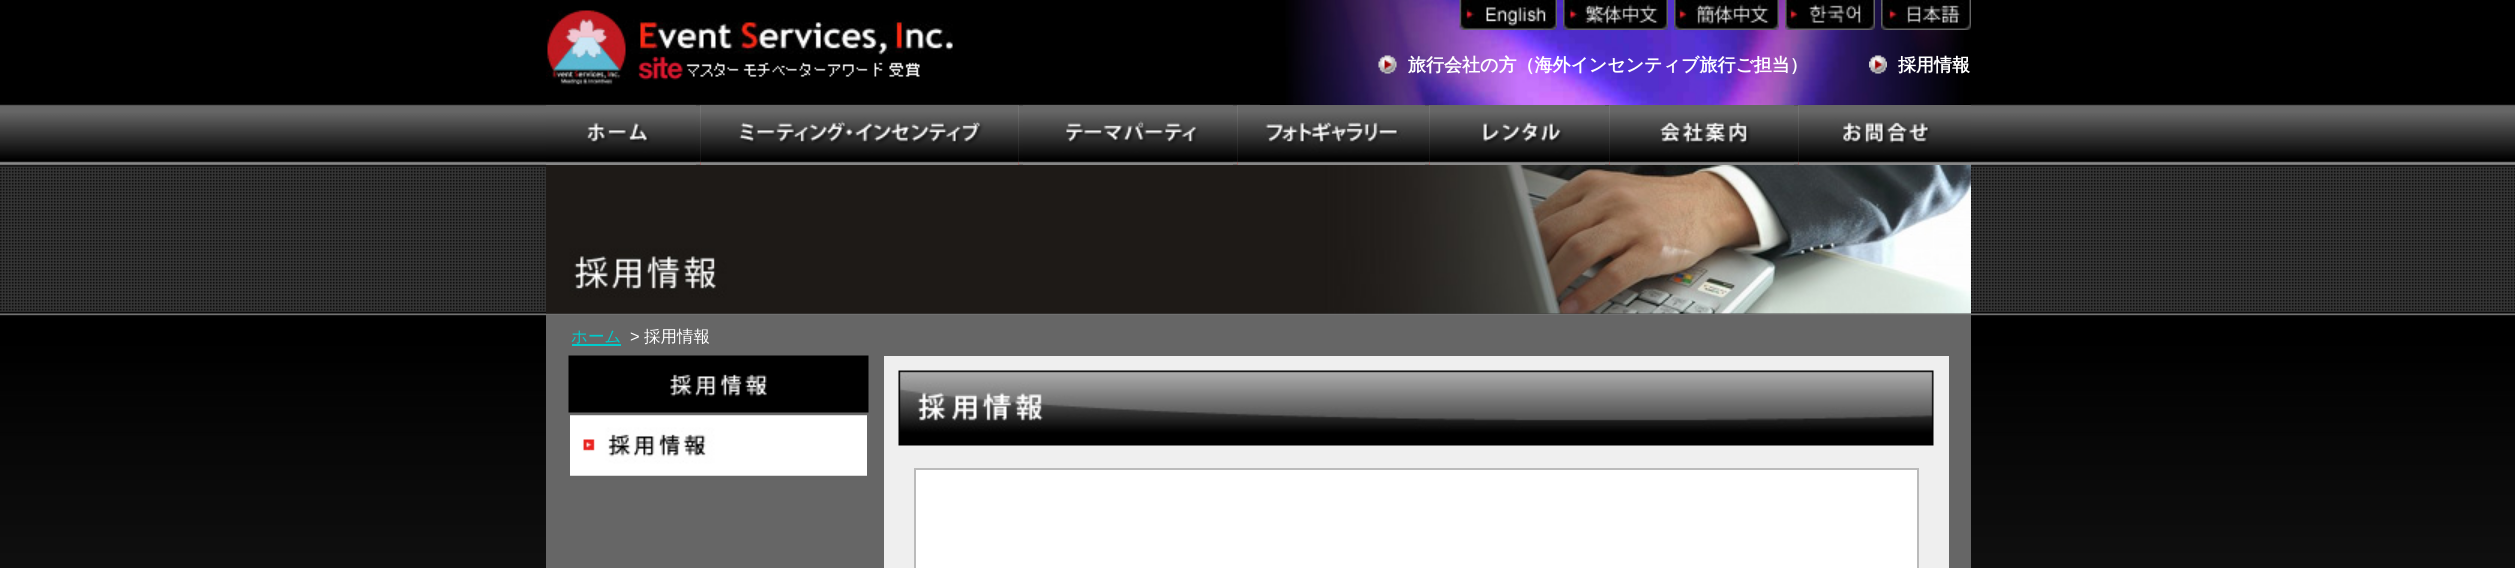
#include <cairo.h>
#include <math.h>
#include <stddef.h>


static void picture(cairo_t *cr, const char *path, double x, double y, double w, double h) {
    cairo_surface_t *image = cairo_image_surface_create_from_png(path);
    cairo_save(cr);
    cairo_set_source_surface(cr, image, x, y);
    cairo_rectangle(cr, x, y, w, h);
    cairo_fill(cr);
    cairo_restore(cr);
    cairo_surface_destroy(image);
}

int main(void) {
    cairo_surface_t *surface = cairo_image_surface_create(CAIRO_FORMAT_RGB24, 2515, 568);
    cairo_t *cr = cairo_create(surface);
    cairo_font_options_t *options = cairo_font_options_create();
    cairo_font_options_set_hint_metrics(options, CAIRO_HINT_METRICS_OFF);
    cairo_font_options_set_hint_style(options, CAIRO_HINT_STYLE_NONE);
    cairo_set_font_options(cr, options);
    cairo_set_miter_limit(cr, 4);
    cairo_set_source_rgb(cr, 1, 1, 1);
    cairo_paint(cr);
    picture(cr, "img1.png", 0, 0, 2515, 568);
    picture(cr, "img2.png", 1260, 0, 711, 105);
    picture(cr, "img3.png", 546, 10, 407, 75);
    picture(cr, "img4.png", 1459, 0, 98, 30);
    picture(cr, "img5.png", 1563, 0, 105, 30);
    picture(cr, "img6.png", 1674, 0, 105, 30);
    picture(cr, "img7.png", 1785, 0, 90, 30);
    picture(cr, "img8.png", 1881, 0, 90, 30);
    picture(cr, "img9.png", 1378, 55, 19, 19);
    cairo_select_font_face(cr, "WenQuanYi Zen Hei", CAIRO_FONT_SLANT_NORMAL, CAIRO_FONT_WEIGHT_BOLD);
    cairo_set_font_size(cr, 18);
    cairo_set_source_rgb(cr, 1, 1, 1);
    cairo_move_to(cr, 1408, 71);
    cairo_show_text(cr, "旅行会社の方（海外インセンティブ旅行ご担当）");
    picture(cr, "img10.png", 1869, 55, 18, 19);
    cairo_move_to(cr, 1898, 71);
    cairo_show_text(cr, "採用情報");
    picture(cr, "img11.png", 546, 105, 150, 60);
    picture(cr, "img12.png", 700, 105, 319, 60);
    picture(cr, "img13.png", 700, 105, 319, 60);
    picture(cr, "img14.png", 1023, 105, 210, 60);
    picture(cr, "img15.png", 1237, 105, 1, 60);
    picture(cr, "img16.png", 1237, 105, 188, 60);
    picture(cr, "img17.png", 1429, 105, 1, 60);
    picture(cr, "img18.png", 1429, 105, 176, 60);
    picture(cr, "img17.png", 1609, 105, 1, 60);
    picture(cr, "img19.png", 1609, 105, 185, 60);
    picture(cr, "img17.png", 1798, 105, 1, 60);
    picture(cr, "img20.png", 1798, 105, 173, 60);
    picture(cr, "img21.png", 546, 165, 1425, 149);
    cairo_set_source_rgb(cr, 0.4, 0.4, 0.4);
    cairo_rectangle(cr, 546, 315, 1425, 253);
    cairo_fill(cr);
    cairo_select_font_face(cr, "WenQuanYi Zen Hei Medium", CAIRO_FONT_SLANT_NORMAL, CAIRO_FONT_WEIGHT_NORMAL);
    cairo_set_font_size(cr, 16.5);
    cairo_set_source_rgb(cr, 0, 0.8, 0.8);
    cairo_move_to(cr, 571, 342);
    cairo_show_text(cr, "ホーム");
    cairo_rectangle(cr, 572, 344, 49, 2);
    cairo_fill(cr);
    cairo_select_font_face(cr, "Liberation Sans", CAIRO_FONT_SLANT_NORMAL, CAIRO_FONT_WEIGHT_NORMAL);
    cairo_set_source_rgb(cr, 1, 1, 1);
    cairo_move_to(cr, 630, 342);
    cairo_show_text(cr, ">");
    cairo_select_font_face(cr, "WenQuanYi Zen Hei Medium", CAIRO_FONT_SLANT_NORMAL, CAIRO_FONT_WEIGHT_NORMAL);
    cairo_move_to(cr, 644, 342);
    cairo_show_text(cr, "採用情報");
    picture(cr, "img22.png", 568, 355, 301, 58);
    picture(cr, "img23.png", 570, 415, 297, 61);
    picture(cr, "img24.png", 570, 415, 297, 61);
    cairo_set_source_rgb(cr, 0.937, 0.937, 0.937);
    cairo_rectangle(cr, 884, 356, 1065, 212);
    cairo_fill(cr);
    picture(cr, "img25.png", 898, 370, 1036, 76);
    cairo_set_source_rgb(cr, 1, 1, 1);
    cairo_rectangle(cr, 915, 469, 1003, 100);
    cairo_fill_preserve(cr);
    cairo_set_source_rgb(cr, 0.733, 0.733, 0.733);
    cairo_stroke(cr);
    cairo_surface_write_to_png(surface, "page.png");
    cairo_font_options_destroy(options);
    cairo_destroy(cr);
    cairo_surface_destroy(surface);
    return 0;
}
